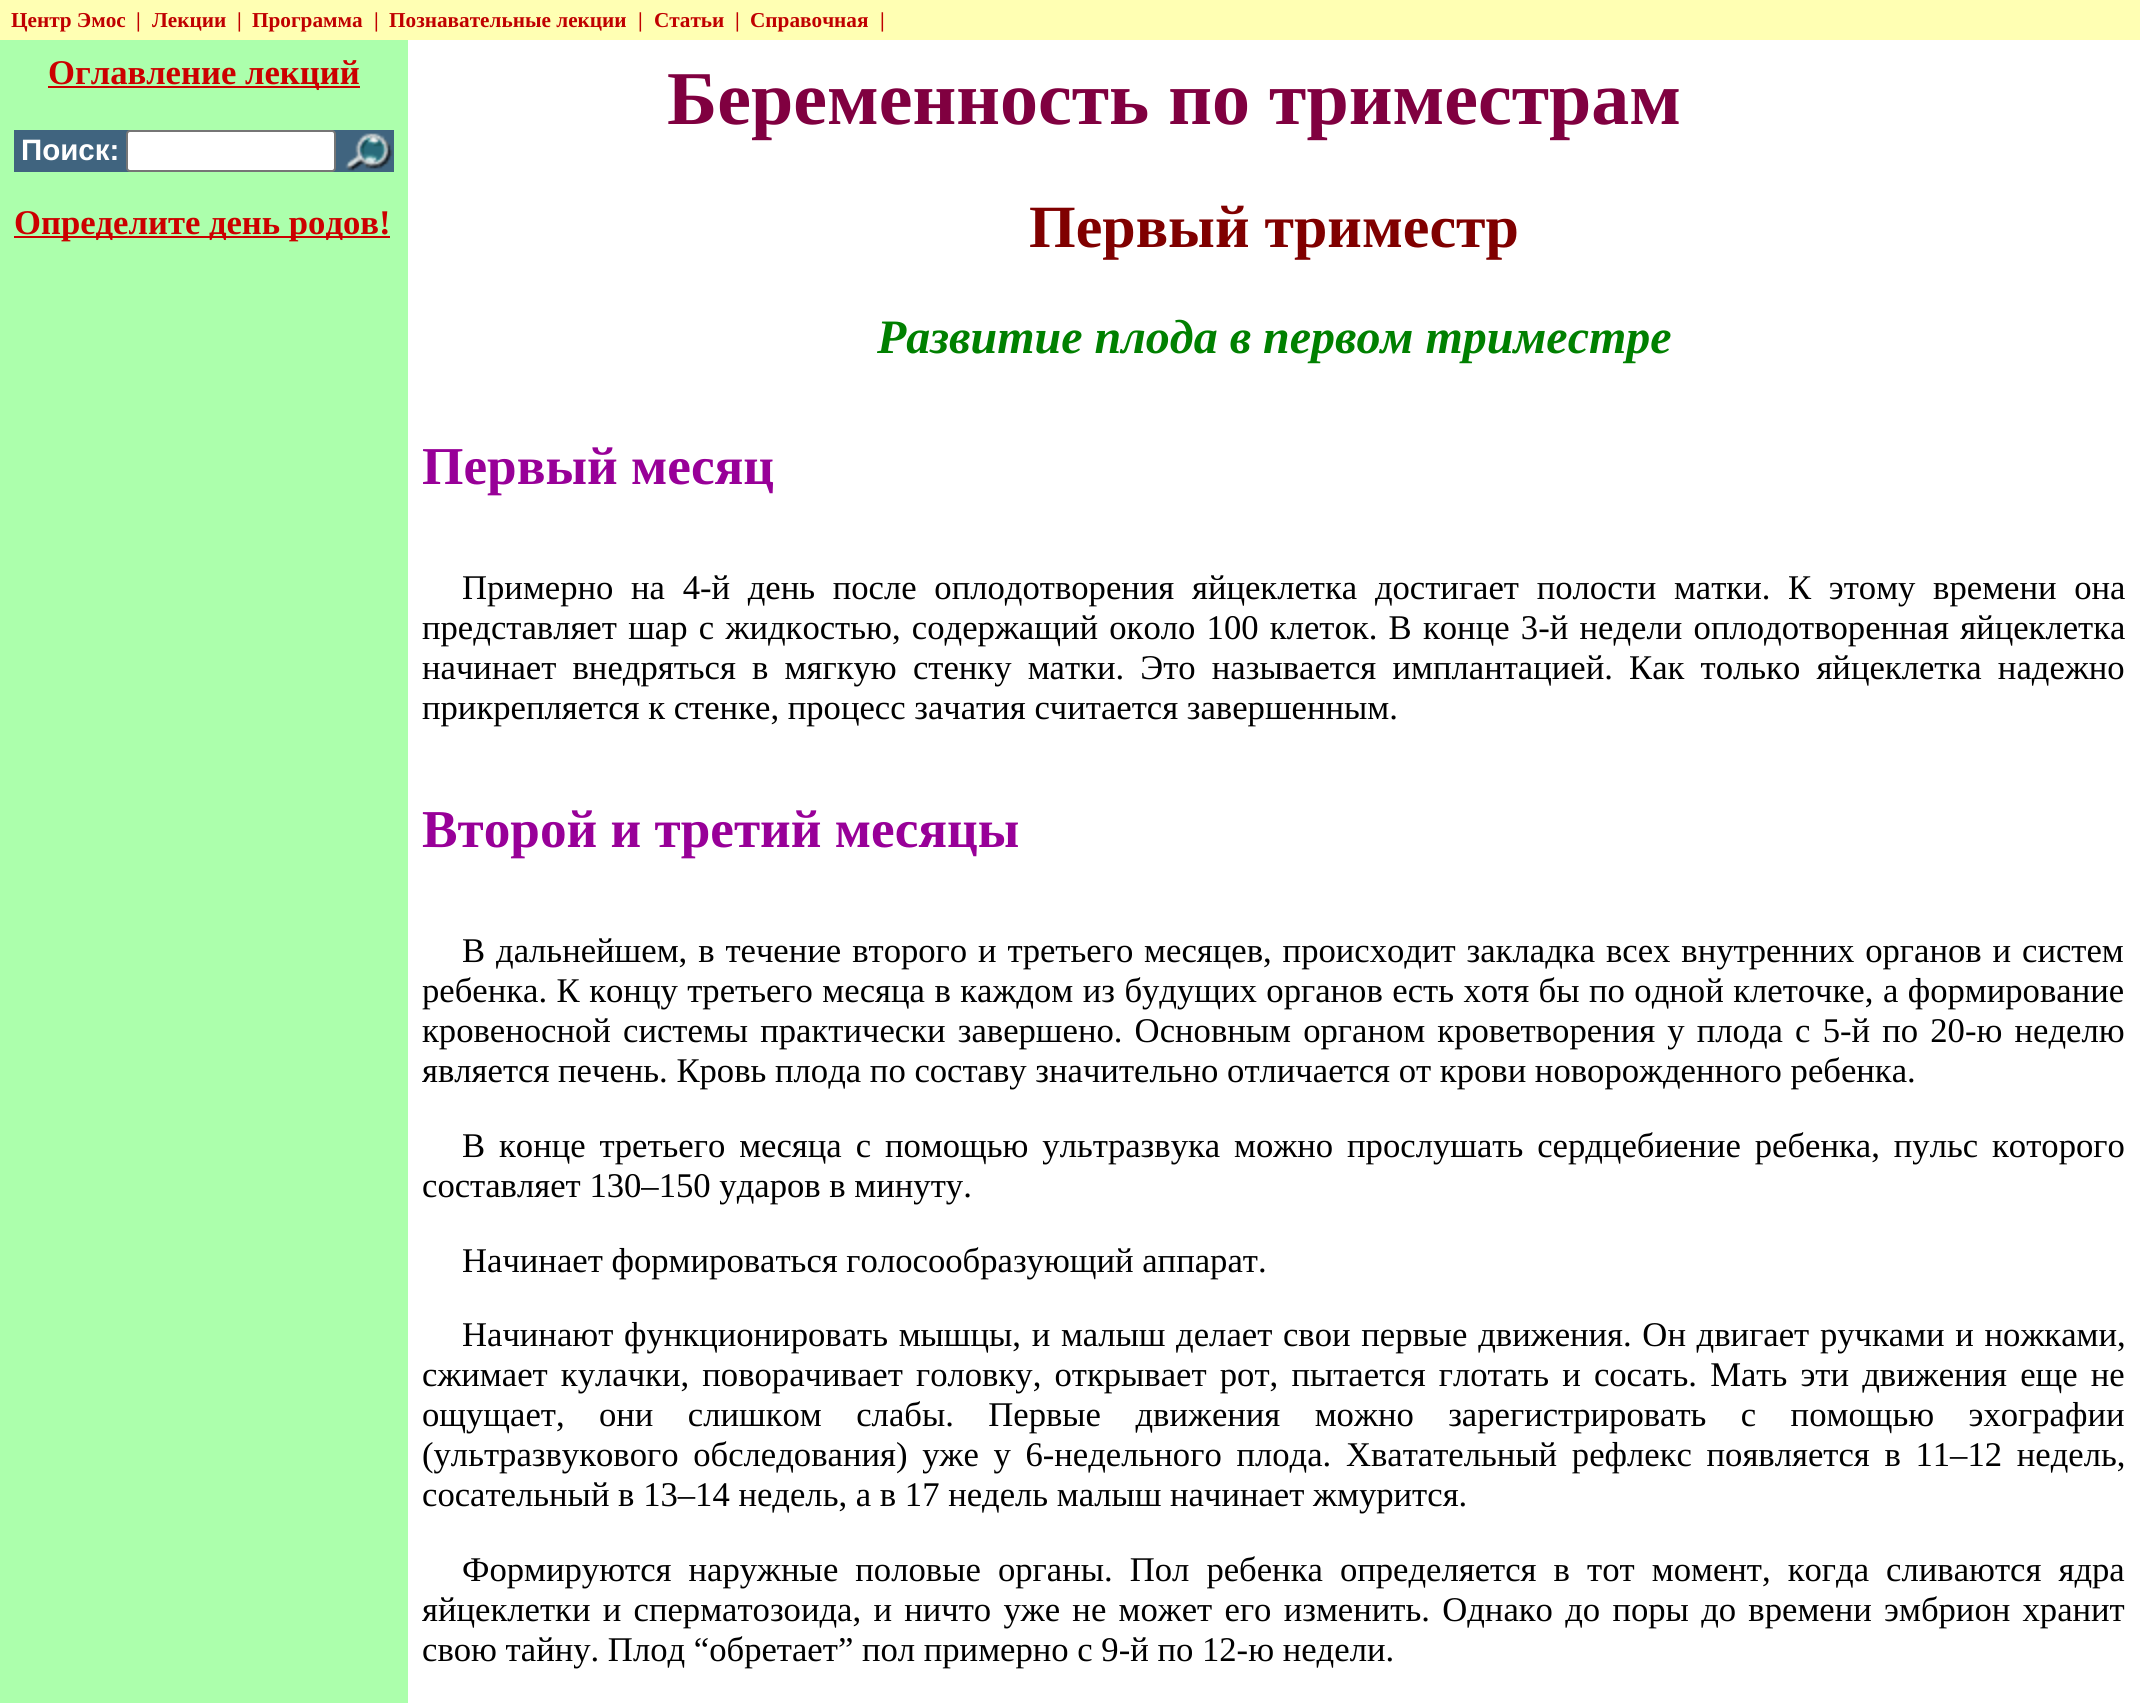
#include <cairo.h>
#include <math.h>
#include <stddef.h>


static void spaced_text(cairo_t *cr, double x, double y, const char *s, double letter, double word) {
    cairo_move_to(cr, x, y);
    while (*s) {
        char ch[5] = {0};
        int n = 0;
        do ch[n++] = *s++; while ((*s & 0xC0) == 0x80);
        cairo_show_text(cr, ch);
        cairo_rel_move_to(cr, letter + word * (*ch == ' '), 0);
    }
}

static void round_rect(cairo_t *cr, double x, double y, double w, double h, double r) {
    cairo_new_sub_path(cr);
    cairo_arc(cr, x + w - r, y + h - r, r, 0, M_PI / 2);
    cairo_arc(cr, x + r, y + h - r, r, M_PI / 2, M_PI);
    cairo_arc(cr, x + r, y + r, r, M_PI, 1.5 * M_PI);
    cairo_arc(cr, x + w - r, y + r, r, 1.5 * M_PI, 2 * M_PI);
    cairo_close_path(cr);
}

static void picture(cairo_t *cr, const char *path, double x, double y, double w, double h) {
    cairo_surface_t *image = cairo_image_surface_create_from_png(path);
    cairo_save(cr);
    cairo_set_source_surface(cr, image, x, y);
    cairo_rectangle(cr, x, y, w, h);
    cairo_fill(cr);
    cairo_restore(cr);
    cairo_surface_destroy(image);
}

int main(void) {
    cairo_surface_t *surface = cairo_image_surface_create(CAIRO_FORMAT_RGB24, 2140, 1703);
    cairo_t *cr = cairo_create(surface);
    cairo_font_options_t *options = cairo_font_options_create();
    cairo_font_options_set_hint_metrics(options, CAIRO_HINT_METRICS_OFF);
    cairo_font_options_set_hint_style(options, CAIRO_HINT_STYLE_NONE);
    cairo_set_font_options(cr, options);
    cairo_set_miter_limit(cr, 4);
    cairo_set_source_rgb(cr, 1, 1, 1);
    cairo_paint(cr);
    cairo_set_source_rgb(cr, 1, 1, 0.702);
    cairo_rectangle(cr, 0, 0, 2140, 40);
    cairo_fill(cr);
    cairo_select_font_face(cr, "Liberation Serif", CAIRO_FONT_SLANT_NORMAL, CAIRO_FONT_WEIGHT_BOLD);
    cairo_set_font_size(cr, 21.25);
    cairo_set_source_rgb(cr, 0.753, 0, 0);
    cairo_move_to(cr, 11, 27);
    cairo_show_text(cr, "Центр Эмос");
    cairo_move_to(cr, 136, 27);
    cairo_show_text(cr, "|");
    cairo_move_to(cr, 152, 27);
    cairo_show_text(cr, "Лекции");
    cairo_move_to(cr, 237, 27);
    cairo_show_text(cr, "|");
    cairo_move_to(cr, 252, 27);
    cairo_show_text(cr, "Программа");
    cairo_move_to(cr, 374, 27);
    cairo_show_text(cr, "|");
    cairo_move_to(cr, 389, 27);
    cairo_show_text(cr, "Познавательные лекции");
    cairo_move_to(cr, 638, 27);
    cairo_show_text(cr, "|");
    cairo_move_to(cr, 654, 27);
    cairo_show_text(cr, "Статьи");
    cairo_move_to(cr, 735, 27);
    cairo_show_text(cr, "|");
    cairo_move_to(cr, 750, 27);
    cairo_show_text(cr, "Справочная");
    cairo_move_to(cr, 880, 27);
    cairo_show_text(cr, "|");
    cairo_set_source_rgb(cr, 0.675, 1, 0.675);
    cairo_rectangle(cr, 0, 40, 408, 1663);
    cairo_fill(cr);
    cairo_set_source_rgb(cr, 0.8, 0, 0);
    cairo_rectangle(cr, 48, 86, 312, 2);
    cairo_fill(cr);
    cairo_set_font_size(cr, 34.65);
    cairo_move_to(cr, 48, 84);
    cairo_show_text(cr, "Оглавление лекций");
    cairo_set_source_rgb(cr, 0.251, 0.392, 0.498);
    cairo_rectangle(cr, 14, 130, 380, 42);
    cairo_fill(cr);
    cairo_select_font_face(cr, "Liberation Sans", CAIRO_FONT_SLANT_NORMAL, CAIRO_FONT_WEIGHT_BOLD);
    cairo_set_font_size(cr, 29.5);
    cairo_set_source_rgb(cr, 1, 1, 1);
    cairo_move_to(cr, 21, 160);
    cairo_show_text(cr, "Поиск:");
    round_rect(cr, 127, 131, 208, 40, 3);
    cairo_fill_preserve(cr);
    cairo_set_source_rgb(cr, 0.463, 0.463, 0.463);
    cairo_stroke(cr);
    picture(cr, "img1.png", 345, 133, 48, 38);
    cairo_set_source_rgb(cr, 0.8, 0, 0);
    cairo_rectangle(cr, 14, 236, 376, 2);
    cairo_fill(cr);
    cairo_select_font_face(cr, "Liberation Serif", CAIRO_FONT_SLANT_NORMAL, CAIRO_FONT_WEIGHT_BOLD);
    cairo_set_font_size(cr, 34.65);
    cairo_move_to(cr, 14, 234);
    cairo_show_text(cr, "Определите день родов!");
    cairo_set_font_size(cr, 76);
    cairo_set_source_rgb(cr, 0.502, 0, 0.251);
    cairo_move_to(cr, 667, 124);
    cairo_show_text(cr, "Беременность по триместрам");
    cairo_set_font_size(cr, 60);
    cairo_set_source_rgb(cr, 0.502, 0, 0);
    cairo_move_to(cr, 1029, 247);
    cairo_show_text(cr, "Первый триместр");
    cairo_select_font_face(cr, "Liberation Serif", CAIRO_FONT_SLANT_ITALIC, CAIRO_FONT_WEIGHT_BOLD);
    cairo_set_font_size(cr, 48);
    cairo_set_source_rgb(cr, 0, 0.502, 0);
    cairo_move_to(cr, 877, 353);
    cairo_show_text(cr, "Развитие плода в первом триместре");
    cairo_select_font_face(cr, "Liberation Serif", CAIRO_FONT_SLANT_NORMAL, CAIRO_FONT_WEIGHT_BOLD);
    cairo_set_font_size(cr, 53.25);
    cairo_set_source_rgb(cr, 0.596, 0, 0.596);
    cairo_move_to(cr, 422, 484);
    cairo_show_text(cr, "Первый месяц");
    cairo_select_font_face(cr, "Liberation Serif", CAIRO_FONT_SLANT_NORMAL, CAIRO_FONT_WEIGHT_NORMAL);
    cairo_set_font_size(cr, 34.65);
    cairo_set_source_rgb(cr, 0, 0, 0);
    spaced_text(cr, 462, 599, "Примерно на 4-й день после оплодотворения яйцеклетка достигает полости матки. К этому времени она", 0, 9);
    spaced_text(cr, 422, 639, "представляет шар с жидкостью, содержащий около 100 клеток. В конце 3-й недели оплодотворенная яйцеклетка", 0, 2.6);
    spaced_text(cr, 422, 679, "начинает внедряться в мягкую стенку матки. Это называется имплантацией. Как только яйцеклетка надежно", 0, 7.5);
    cairo_move_to(cr, 422, 719);
    cairo_show_text(cr, "прикрепляется к стенке, процесс зачатия считается завершенным.");
    cairo_select_font_face(cr, "Liberation Serif", CAIRO_FONT_SLANT_NORMAL, CAIRO_FONT_WEIGHT_BOLD);
    cairo_set_font_size(cr, 53.25);
    cairo_set_source_rgb(cr, 0.596, 0, 0.596);
    cairo_move_to(cr, 422, 847);
    cairo_show_text(cr, "Второй и третий месяцы");
    cairo_select_font_face(cr, "Liberation Serif", CAIRO_FONT_SLANT_NORMAL, CAIRO_FONT_WEIGHT_NORMAL);
    cairo_set_font_size(cr, 34.65);
    cairo_set_source_rgb(cr, 0, 0, 0);
    spaced_text(cr, 462, 962, "В дальнейшем, в течение второго и третьего месяцев, происходит закладка всех внутренних органов и систем", 0, 2.25);
    spaced_text(cr, 422, 1002, "ребенка. К концу третьего месяца в каждом из будущих органов есть хотя бы по одной клеточке, а формирование", 0, 0.8);
    spaced_text(cr, 422, 1042, "кровеносной системы практически завершено. Основным органом кроветворения у плода с 5-й по 20-ю неделю", 0, 3.5);
    cairo_move_to(cr, 422, 1082);
    cairo_show_text(cr, "является печень. Кровь плода по составу значительно отличается от крови новорожденного ребенка.");
    spaced_text(cr, 462, 1157, "В конце третьего месяца с помощью ультразвука можно прослушать сердцебиение ребенка, пульс которого", 0, 5.25);
    cairo_move_to(cr, 422, 1197);
    cairo_show_text(cr, "составляет 130–150 ударов в минуту.");
    cairo_move_to(cr, 462, 1272);
    cairo_show_text(cr, "Начинает формироваться голосообразующий аппарат.");
    spaced_text(cr, 462, 1346, "Начинают функционировать мышцы, и малыш делает свои первые движения. Он двигает ручками и ножками,", 0, 2);
    spaced_text(cr, 422, 1386, "сжимает кулачки, поворачивает головку, открывает рот, пытается глотать и сосать. Мать эти движения еще не", 0, 4.5);
    spaced_text(cr, 422, 1426, "ощущает, они слишком слабы. Первые движения можно зарегистрировать с помощью эхографии", 0, 25.75);
    spaced_text(cr, 422, 1466, "(ультразвукового обследования) уже у 6-недельного плода. Хватательный рефлекс появляется в 11–12 недель,", 0, 6);
    cairo_move_to(cr, 422, 1506);
    cairo_show_text(cr, "сосательный в 13–14 недель, а в 17 недель малыш начинает жмурится.");
    spaced_text(cr, 462, 1581, "Формируются наружные половые органы. Пол ребенка определяется в тот момент, когда сливаются ядра", 0, 8.4);
    spaced_text(cr, 422, 1621, "яйцеклетки и сперматозоида, и ничто уже не может его изменить. Однако до поры до времени эмбрион хранит", 0, 3.6);
    cairo_move_to(cr, 422, 1661);
    cairo_show_text(cr, "свою тайну. Плод “обретает” пол примерно с 9-й по 12-ю недели.");
    cairo_surface_write_to_png(surface, "page.png");
    cairo_font_options_destroy(options);
    cairo_destroy(cr);
    cairo_surface_destroy(surface);
    return 0;
}
